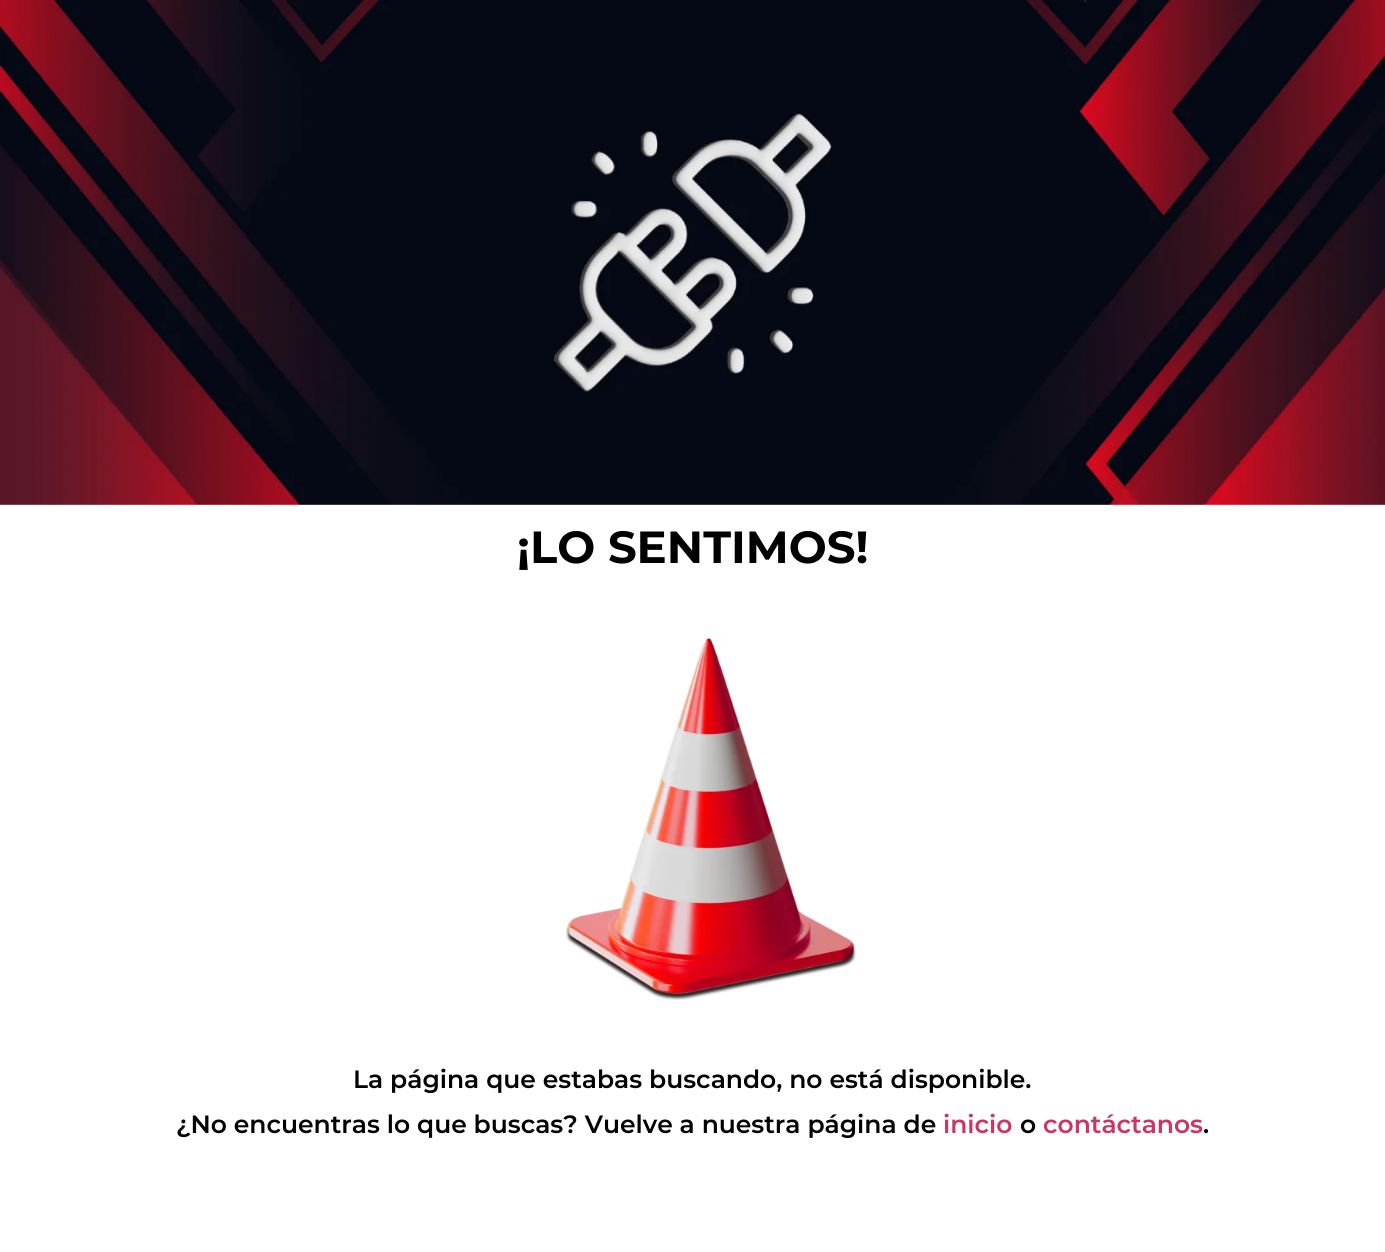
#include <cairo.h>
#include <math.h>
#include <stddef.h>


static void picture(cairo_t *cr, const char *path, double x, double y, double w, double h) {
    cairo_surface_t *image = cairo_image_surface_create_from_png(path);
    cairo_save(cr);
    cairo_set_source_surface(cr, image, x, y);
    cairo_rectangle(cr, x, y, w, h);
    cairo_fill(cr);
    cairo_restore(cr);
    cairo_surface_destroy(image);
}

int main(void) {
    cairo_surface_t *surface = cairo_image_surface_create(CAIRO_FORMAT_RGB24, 1385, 1252);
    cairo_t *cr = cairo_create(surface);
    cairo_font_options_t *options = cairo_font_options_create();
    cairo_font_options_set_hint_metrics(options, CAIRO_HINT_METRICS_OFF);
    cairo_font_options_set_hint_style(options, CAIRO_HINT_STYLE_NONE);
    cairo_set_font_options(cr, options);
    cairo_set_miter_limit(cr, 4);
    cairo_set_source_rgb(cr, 1, 1, 1);
    cairo_paint(cr);
    picture(cr, "img1.png", 0, 0, 1385, 505);
    cairo_select_font_face(cr, "Montserrat", CAIRO_FONT_SLANT_NORMAL, CAIRO_FONT_WEIGHT_BOLD);
    cairo_set_font_size(cr, 45);
    cairo_set_source_rgb(cr, 0, 0, 0);
    cairo_move_to(cr, 517, 563);
    cairo_show_text(cr, "¡LO SENTIMOS!");
    picture(cr, "img2.png", 566, 638, 290, 362);
    cairo_select_font_face(cr, "Montserrat SemiBold", CAIRO_FONT_SLANT_NORMAL, CAIRO_FONT_WEIGHT_NORMAL);
    cairo_set_font_size(cr, 25);
    cairo_move_to(cr, 353, 1088);
    cairo_show_text(cr, "La página que estabas buscando, no está disponible.");
    cairo_move_to(cr, 176, 1133);
    cairo_show_text(cr, "¿No encuentras lo que buscas? Vuelve a nuestra página de");
    cairo_set_source_rgb(cr, 0.8, 0.2, 0.4);
    cairo_move_to(cr, 943, 1133);
    cairo_show_text(cr, "inicio");
    cairo_set_source_rgb(cr, 0, 0, 0);
    cairo_move_to(cr, 1020, 1133);
    cairo_show_text(cr, "o");
    cairo_set_source_rgb(cr, 0.8, 0.2, 0.4);
    cairo_move_to(cr, 1043, 1133);
    cairo_show_text(cr, "contáctanos");
    cairo_set_source_rgb(cr, 0, 0, 0);
    cairo_move_to(cr, 1203, 1133);
    cairo_show_text(cr, ".");
    cairo_surface_write_to_png(surface, "page.png");
    cairo_font_options_destroy(options);
    cairo_destroy(cr);
    cairo_surface_destroy(surface);
    return 0;
}
